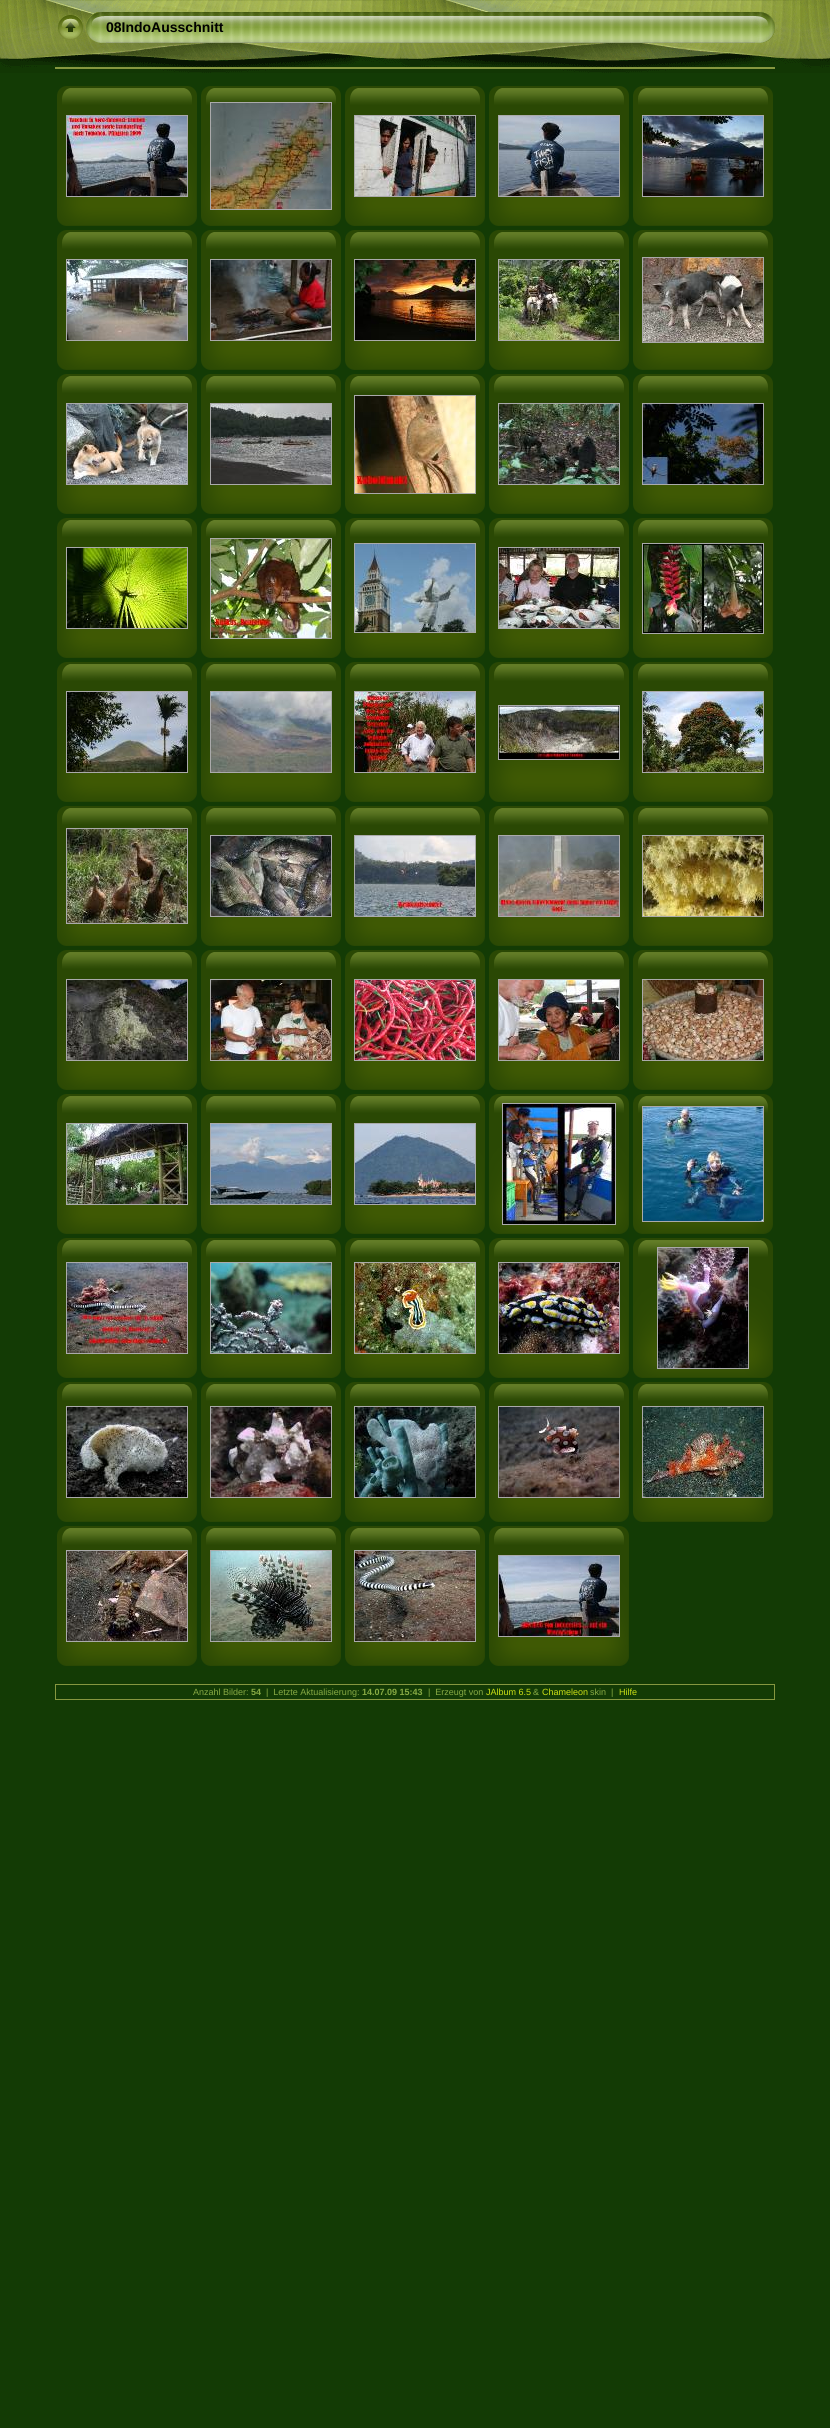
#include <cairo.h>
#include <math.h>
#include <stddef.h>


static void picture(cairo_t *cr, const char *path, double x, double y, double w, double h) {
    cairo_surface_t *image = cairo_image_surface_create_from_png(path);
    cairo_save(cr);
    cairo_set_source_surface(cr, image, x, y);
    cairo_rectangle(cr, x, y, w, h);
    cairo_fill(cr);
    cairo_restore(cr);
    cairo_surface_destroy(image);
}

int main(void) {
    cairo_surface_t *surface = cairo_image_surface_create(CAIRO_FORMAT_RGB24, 830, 2428);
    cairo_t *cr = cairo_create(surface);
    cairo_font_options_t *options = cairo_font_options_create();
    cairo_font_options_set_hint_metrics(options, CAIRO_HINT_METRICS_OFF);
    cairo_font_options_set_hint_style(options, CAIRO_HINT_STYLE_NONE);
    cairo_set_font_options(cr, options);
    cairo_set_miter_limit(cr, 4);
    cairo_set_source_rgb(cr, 0.078, 0.231, 0.02);
    cairo_paint(cr);
    picture(cr, "img1.png", 0, 0, 830, 73);
    picture(cr, "img2.png", 57, 15, 26, 25);
    picture(cr, "img3.png", 86, 12, 20, 31);
    picture(cr, "img4.png", 106, 12, 649, 31);
    cairo_select_font_face(cr, "Liberation Sans", CAIRO_FONT_SLANT_NORMAL, CAIRO_FONT_WEIGHT_BOLD);
    cairo_set_font_size(cr, 14);
    cairo_set_source_rgb(cr, 0, 0, 0);
    cairo_move_to(cr, 106, 32);
    cairo_show_text(cr, "08IndoAusschnitt");
    picture(cr, "img5.png", 755, 12, 20, 31);
    cairo_set_source_rgb(cr, 0.525, 0.592, 0.251);
    cairo_rectangle(cr, 55, 67, 720, 2);
    cairo_fill(cr);
    picture(cr, "img6.png", 57, 86, 140, 140);
    cairo_rectangle(cr, 66.5, 115.5, 121, 81);
    cairo_set_source_rgb(cr, 0.667, 0.667, 0.667);
    cairo_set_line_width(cr, 1);
    cairo_stroke(cr);
    picture(cr, "img7.png", 67, 116, 120, 80);
    picture(cr, "img6.png", 201, 86, 140, 140);
    cairo_rectangle(cr, 210.5, 102.5, 121, 107);
    cairo_stroke(cr);
    picture(cr, "img8.png", 211, 103, 120, 106);
    picture(cr, "img6.png", 345, 86, 140, 140);
    cairo_rectangle(cr, 354.5, 115.5, 121, 81);
    cairo_stroke(cr);
    picture(cr, "img9.png", 355, 116, 120, 80);
    picture(cr, "img6.png", 489, 86, 140, 140);
    cairo_rectangle(cr, 498.5, 115.5, 121, 81);
    cairo_stroke(cr);
    picture(cr, "img10.png", 499, 116, 120, 80);
    picture(cr, "img6.png", 633, 86, 140, 140);
    cairo_rectangle(cr, 642.5, 115.5, 121, 81);
    cairo_stroke(cr);
    picture(cr, "img11.png", 643, 116, 120, 80);
    picture(cr, "img6.png", 57, 230, 140, 140);
    cairo_rectangle(cr, 66.5, 259.5, 121, 81);
    cairo_stroke(cr);
    picture(cr, "img12.png", 67, 260, 120, 80);
    picture(cr, "img6.png", 201, 230, 140, 140);
    cairo_rectangle(cr, 210.5, 259.5, 121, 81);
    cairo_stroke(cr);
    picture(cr, "img13.png", 211, 260, 120, 80);
    picture(cr, "img6.png", 345, 230, 140, 140);
    cairo_rectangle(cr, 354.5, 259.5, 121, 81);
    cairo_stroke(cr);
    picture(cr, "img14.png", 355, 260, 120, 80);
    picture(cr, "img6.png", 489, 230, 140, 140);
    cairo_rectangle(cr, 498.5, 259.5, 121, 81);
    cairo_stroke(cr);
    picture(cr, "img15.png", 499, 260, 120, 80);
    picture(cr, "img6.png", 633, 230, 140, 140);
    cairo_rectangle(cr, 642.5, 257.5, 121, 85);
    cairo_stroke(cr);
    picture(cr, "img16.png", 643, 258, 120, 84);
    picture(cr, "img6.png", 57, 374, 140, 140);
    cairo_rectangle(cr, 66.5, 403.5, 121, 81);
    cairo_stroke(cr);
    picture(cr, "img17.png", 67, 404, 120, 80);
    picture(cr, "img6.png", 201, 374, 140, 140);
    cairo_rectangle(cr, 210.5, 403.5, 121, 81);
    cairo_stroke(cr);
    picture(cr, "img18.png", 211, 404, 120, 80);
    picture(cr, "img6.png", 345, 374, 140, 140);
    cairo_rectangle(cr, 354.5, 395.5, 121, 98);
    cairo_stroke(cr);
    picture(cr, "img19.png", 355, 396, 120, 97);
    picture(cr, "img6.png", 489, 374, 140, 140);
    cairo_rectangle(cr, 498.5, 403.5, 121, 81);
    cairo_stroke(cr);
    picture(cr, "img20.png", 499, 404, 120, 80);
    picture(cr, "img6.png", 633, 374, 140, 140);
    cairo_rectangle(cr, 642.5, 403.5, 121, 81);
    cairo_stroke(cr);
    picture(cr, "img21.png", 643, 404, 120, 80);
    picture(cr, "img6.png", 57, 518, 140, 140);
    cairo_rectangle(cr, 66.5, 547.5, 121, 81);
    cairo_stroke(cr);
    picture(cr, "img22.png", 67, 548, 120, 80);
    picture(cr, "img6.png", 201, 518, 140, 140);
    cairo_rectangle(cr, 210.5, 538.5, 121, 100);
    cairo_stroke(cr);
    picture(cr, "img23.png", 211, 539, 120, 99);
    picture(cr, "img6.png", 345, 518, 140, 140);
    cairo_rectangle(cr, 354.5, 543.5, 121, 89);
    cairo_stroke(cr);
    picture(cr, "img24.png", 355, 544, 120, 88);
    picture(cr, "img6.png", 489, 518, 140, 140);
    cairo_rectangle(cr, 498.5, 547.5, 121, 81);
    cairo_stroke(cr);
    picture(cr, "img25.png", 499, 548, 120, 80);
    picture(cr, "img6.png", 633, 518, 140, 140);
    cairo_rectangle(cr, 642.5, 543.5, 121, 90);
    cairo_stroke(cr);
    picture(cr, "img26.png", 643, 544, 120, 89);
    picture(cr, "img6.png", 57, 662, 140, 140);
    cairo_rectangle(cr, 66.5, 691.5, 121, 81);
    cairo_stroke(cr);
    picture(cr, "img27.png", 67, 692, 120, 80);
    picture(cr, "img6.png", 201, 662, 140, 140);
    cairo_rectangle(cr, 210.5, 691.5, 121, 81);
    cairo_stroke(cr);
    picture(cr, "img28.png", 211, 692, 120, 80);
    picture(cr, "img6.png", 345, 662, 140, 140);
    cairo_rectangle(cr, 354.5, 691.5, 121, 81);
    cairo_stroke(cr);
    picture(cr, "img29.png", 355, 692, 120, 80);
    picture(cr, "img6.png", 489, 662, 140, 140);
    cairo_rectangle(cr, 498.5, 705.5, 121, 54);
    cairo_stroke(cr);
    picture(cr, "img30.png", 499, 706, 120, 53);
    picture(cr, "img6.png", 633, 662, 140, 140);
    cairo_rectangle(cr, 642.5, 691.5, 121, 81);
    cairo_stroke(cr);
    picture(cr, "img31.png", 643, 692, 120, 80);
    picture(cr, "img6.png", 57, 806, 140, 140);
    cairo_rectangle(cr, 66.5, 828.5, 121, 95);
    cairo_stroke(cr);
    picture(cr, "img32.png", 67, 829, 120, 94);
    picture(cr, "img6.png", 201, 806, 140, 140);
    cairo_rectangle(cr, 210.5, 835.5, 121, 81);
    cairo_stroke(cr);
    picture(cr, "img33.png", 211, 836, 120, 80);
    picture(cr, "img6.png", 345, 806, 140, 140);
    cairo_rectangle(cr, 354.5, 835.5, 121, 81);
    cairo_stroke(cr);
    picture(cr, "img34.png", 355, 836, 120, 80);
    picture(cr, "img6.png", 489, 806, 140, 140);
    cairo_rectangle(cr, 498.5, 835.5, 121, 81);
    cairo_stroke(cr);
    picture(cr, "img35.png", 499, 836, 120, 80);
    picture(cr, "img6.png", 633, 806, 140, 140);
    cairo_rectangle(cr, 642.5, 835.5, 121, 81);
    cairo_stroke(cr);
    picture(cr, "img36.png", 643, 836, 120, 80);
    picture(cr, "img6.png", 57, 950, 140, 140);
    cairo_rectangle(cr, 66.5, 979.5, 121, 81);
    cairo_stroke(cr);
    picture(cr, "img37.png", 67, 980, 120, 80);
    picture(cr, "img6.png", 201, 950, 140, 140);
    cairo_rectangle(cr, 210.5, 979.5, 121, 81);
    cairo_stroke(cr);
    picture(cr, "img38.png", 211, 980, 120, 80);
    picture(cr, "img6.png", 345, 950, 140, 140);
    cairo_rectangle(cr, 354.5, 979.5, 121, 81);
    cairo_stroke(cr);
    picture(cr, "img39.png", 355, 980, 120, 80);
    picture(cr, "img6.png", 489, 950, 140, 140);
    cairo_rectangle(cr, 498.5, 979.5, 121, 81);
    cairo_stroke(cr);
    picture(cr, "img40.png", 499, 980, 120, 80);
    picture(cr, "img6.png", 633, 950, 140, 140);
    cairo_rectangle(cr, 642.5, 979.5, 121, 81);
    cairo_stroke(cr);
    picture(cr, "img41.png", 643, 980, 120, 80);
    picture(cr, "img6.png", 57, 1094, 140, 140);
    cairo_rectangle(cr, 66.5, 1123.5, 121, 81);
    cairo_stroke(cr);
    picture(cr, "img42.png", 67, 1124, 120, 80);
    picture(cr, "img6.png", 201, 1094, 140, 140);
    cairo_rectangle(cr, 210.5, 1123.5, 121, 81);
    cairo_stroke(cr);
    picture(cr, "img43.png", 211, 1124, 120, 80);
    picture(cr, "img6.png", 345, 1094, 140, 140);
    cairo_rectangle(cr, 354.5, 1123.5, 121, 81);
    cairo_stroke(cr);
    picture(cr, "img44.png", 355, 1124, 120, 80);
    picture(cr, "img6.png", 489, 1094, 140, 140);
    cairo_rectangle(cr, 502.5, 1103.5, 113, 121);
    cairo_stroke(cr);
    picture(cr, "img45.png", 503, 1104, 112, 120);
    picture(cr, "img6.png", 633, 1094, 140, 140);
    cairo_rectangle(cr, 642.5, 1106.5, 121, 115);
    cairo_stroke(cr);
    picture(cr, "img46.png", 643, 1107, 120, 114);
    picture(cr, "img6.png", 57, 1238, 140, 140);
    cairo_rectangle(cr, 66.5, 1262.5, 121, 91);
    cairo_stroke(cr);
    picture(cr, "img47.png", 67, 1263, 120, 90);
    picture(cr, "img6.png", 201, 1238, 140, 140);
    cairo_rectangle(cr, 210.5, 1262.5, 121, 91);
    cairo_stroke(cr);
    picture(cr, "img48.png", 211, 1263, 120, 90);
    picture(cr, "img6.png", 345, 1238, 140, 140);
    cairo_rectangle(cr, 354.5, 1262.5, 121, 91);
    cairo_stroke(cr);
    picture(cr, "img49.png", 355, 1263, 120, 90);
    picture(cr, "img6.png", 489, 1238, 140, 140);
    cairo_rectangle(cr, 498.5, 1262.5, 121, 91);
    cairo_stroke(cr);
    picture(cr, "img50.png", 499, 1263, 120, 90);
    picture(cr, "img6.png", 633, 1238, 140, 140);
    cairo_rectangle(cr, 657.5, 1247.5, 91, 121);
    cairo_stroke(cr);
    picture(cr, "img51.png", 658, 1248, 90, 120);
    picture(cr, "img6.png", 57, 1382, 140, 140);
    cairo_rectangle(cr, 66.5, 1406.5, 121, 91);
    cairo_stroke(cr);
    picture(cr, "img52.png", 67, 1407, 120, 90);
    picture(cr, "img6.png", 201, 1382, 140, 140);
    cairo_rectangle(cr, 210.5, 1406.5, 121, 91);
    cairo_stroke(cr);
    picture(cr, "img53.png", 211, 1407, 120, 90);
    picture(cr, "img6.png", 345, 1382, 140, 140);
    cairo_rectangle(cr, 354.5, 1406.5, 121, 91);
    cairo_stroke(cr);
    picture(cr, "img54.png", 355, 1407, 120, 90);
    picture(cr, "img6.png", 489, 1382, 140, 140);
    cairo_rectangle(cr, 498.5, 1406.5, 121, 91);
    cairo_stroke(cr);
    picture(cr, "img55.png", 499, 1407, 120, 90);
    picture(cr, "img6.png", 633, 1382, 140, 140);
    cairo_rectangle(cr, 642.5, 1406.5, 121, 91);
    cairo_stroke(cr);
    picture(cr, "img56.png", 643, 1407, 120, 90);
    picture(cr, "img6.png", 57, 1526, 140, 140);
    cairo_rectangle(cr, 66.5, 1550.5, 121, 91);
    cairo_stroke(cr);
    picture(cr, "img57.png", 67, 1551, 120, 90);
    picture(cr, "img6.png", 201, 1526, 140, 140);
    cairo_rectangle(cr, 210.5, 1550.5, 121, 91);
    cairo_stroke(cr);
    picture(cr, "img58.png", 211, 1551, 120, 90);
    picture(cr, "img6.png", 345, 1526, 140, 140);
    cairo_rectangle(cr, 354.5, 1550.5, 121, 91);
    cairo_stroke(cr);
    picture(cr, "img59.png", 355, 1551, 120, 90);
    picture(cr, "img6.png", 489, 1526, 140, 140);
    cairo_rectangle(cr, 498.5, 1555.5, 121, 81);
    cairo_stroke(cr);
    picture(cr, "img60.png", 499, 1556, 120, 80);
    cairo_set_source_rgb(cr, 0.525, 0.592, 0.251);
    cairo_rectangle(cr, 55, 1684, 720, 1);
    cairo_fill(cr);
    cairo_rectangle(cr, 774, 1684, 1, 16);
    cairo_fill(cr);
    cairo_rectangle(cr, 55, 1699, 720, 1);
    cairo_fill(cr);
    cairo_rectangle(cr, 55, 1684, 1, 16);
    cairo_fill(cr);
    cairo_select_font_face(cr, "Liberation Sans", CAIRO_FONT_SLANT_NORMAL, CAIRO_FONT_WEIGHT_NORMAL);
    cairo_set_font_size(cr, 9);
    cairo_set_source_rgb(cr, 0.533, 0.667, 0.267);
    cairo_move_to(cr, 193, 1695);
    cairo_show_text(cr, "Anzahl Bilder:");
    cairo_select_font_face(cr, "Liberation Sans", CAIRO_FONT_SLANT_NORMAL, CAIRO_FONT_WEIGHT_BOLD);
    cairo_move_to(cr, 251, 1695);
    cairo_show_text(cr, "54");
    cairo_select_font_face(cr, "Liberation Sans", CAIRO_FONT_SLANT_NORMAL, CAIRO_FONT_WEIGHT_NORMAL);
    cairo_move_to(cr, 266, 1695);
    cairo_show_text(cr, "|  Letzte Aktualisierung:");
    cairo_select_font_face(cr, "Liberation Sans", CAIRO_FONT_SLANT_NORMAL, CAIRO_FONT_WEIGHT_BOLD);
    cairo_move_to(cr, 362, 1695);
    cairo_show_text(cr, "14.07.09 15:43");
    cairo_select_font_face(cr, "Liberation Sans", CAIRO_FONT_SLANT_NORMAL, CAIRO_FONT_WEIGHT_NORMAL);
    cairo_move_to(cr, 428, 1695);
    cairo_show_text(cr, "|  Erzeugt von");
    cairo_set_source_rgb(cr, 0.8, 0.878, 0.086);
    cairo_move_to(cr, 486, 1695);
    cairo_show_text(cr, "JAlbum 6.5");
    cairo_set_source_rgb(cr, 0.533, 0.667, 0.267);
    cairo_move_to(cr, 533, 1695);
    cairo_show_text(cr, "&");
    cairo_set_source_rgb(cr, 0.8, 0.878, 0.086);
    cairo_move_to(cr, 542, 1695);
    cairo_show_text(cr, "Chameleon");
    cairo_set_source_rgb(cr, 0.533, 0.667, 0.267);
    cairo_move_to(cr, 590, 1695);
    cairo_show_text(cr, "skin  |");
    cairo_set_source_rgb(cr, 0.8, 0.878, 0.086);
    cairo_move_to(cr, 619, 1695);
    cairo_show_text(cr, "Hilfe");
    cairo_surface_write_to_png(surface, "page.png");
    cairo_font_options_destroy(options);
    cairo_destroy(cr);
    cairo_surface_destroy(surface);
    return 0;
}
